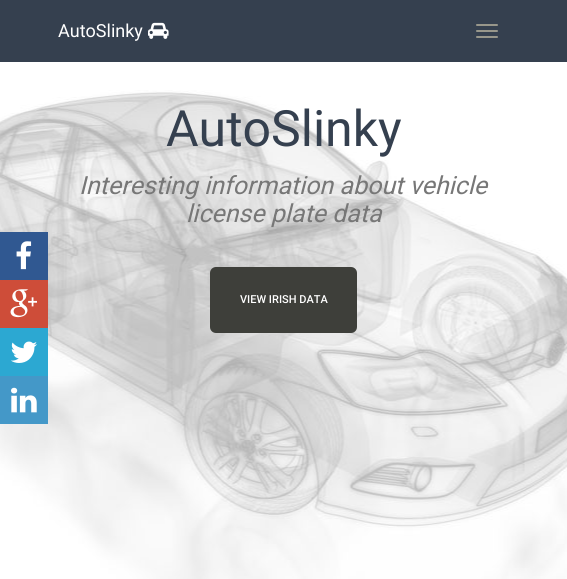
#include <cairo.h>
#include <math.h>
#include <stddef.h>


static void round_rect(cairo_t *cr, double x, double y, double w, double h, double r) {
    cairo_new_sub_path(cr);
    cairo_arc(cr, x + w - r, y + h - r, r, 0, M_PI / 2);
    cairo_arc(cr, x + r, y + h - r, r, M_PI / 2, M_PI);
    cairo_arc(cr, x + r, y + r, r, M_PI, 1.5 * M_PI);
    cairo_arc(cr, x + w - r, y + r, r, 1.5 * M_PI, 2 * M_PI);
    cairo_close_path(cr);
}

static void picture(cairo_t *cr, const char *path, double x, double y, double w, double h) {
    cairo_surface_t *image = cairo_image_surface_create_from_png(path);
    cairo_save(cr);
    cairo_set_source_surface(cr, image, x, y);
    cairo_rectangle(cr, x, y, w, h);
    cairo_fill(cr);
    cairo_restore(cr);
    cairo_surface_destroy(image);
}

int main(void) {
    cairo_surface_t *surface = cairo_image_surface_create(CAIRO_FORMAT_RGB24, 567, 579);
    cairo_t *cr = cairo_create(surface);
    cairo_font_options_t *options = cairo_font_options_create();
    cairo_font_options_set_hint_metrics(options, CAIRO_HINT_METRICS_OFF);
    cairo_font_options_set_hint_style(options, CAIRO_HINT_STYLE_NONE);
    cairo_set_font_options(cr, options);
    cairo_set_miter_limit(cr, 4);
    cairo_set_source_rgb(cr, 1, 1, 1);
    cairo_paint(cr);
    picture(cr, "img1.png", 0, 90, 567, 489);
    cairo_set_source_rgb(cr, 0.208, 0.251, 0.31);
    cairo_rectangle(cr, 0, 0, 567, 62);
    cairo_fill(cr);
    cairo_select_font_face(cr, "Roboto", CAIRO_FONT_SLANT_NORMAL, CAIRO_FONT_WEIGHT_NORMAL);
    cairo_set_font_size(cr, 18);
    cairo_set_source_rgb(cr, 1, 1, 1);
    cairo_move_to(cr, 58, 37);
    cairo_show_text(cr, "AutoSlinky");
    picture(cr, "img2.png", 148, 22, 21, 17);
    cairo_set_source_rgb(cr, 0.596, 0.592, 0.545);
    round_rect(cr, 476, 24, 22, 2, 1);
    cairo_fill(cr);
    round_rect(cr, 476, 30, 22, 2, 1);
    cairo_fill(cr);
    round_rect(cr, 476, 36, 22, 2, 1);
    cairo_fill(cr);
    cairo_set_font_size(cr, 50);
    cairo_set_source_rgb(cr, 0.208, 0.251, 0.31);
    cairo_move_to(cr, 166, 146);
    cairo_show_text(cr, "AutoSlinky");
    cairo_select_font_face(cr, "Roboto", CAIRO_FONT_SLANT_ITALIC, CAIRO_FONT_WEIGHT_NORMAL);
    cairo_set_font_size(cr, 25);
    cairo_set_source_rgb(cr, 0.467, 0.467, 0.467);
    cairo_move_to(cr, 79, 194);
    cairo_show_text(cr, "Interesting information about vehicle");
    cairo_move_to(cr, 186, 222);
    cairo_show_text(cr, "license plate data");
    cairo_set_source_rgb(cr, 0.243, 0.247, 0.227);
    round_rect(cr, 210, 267, 147, 66, 6);
    cairo_fill(cr);
    cairo_select_font_face(cr, "Roboto Medium", CAIRO_FONT_SLANT_NORMAL, CAIRO_FONT_WEIGHT_NORMAL);
    cairo_set_font_size(cr, 11);
    cairo_set_source_rgb(cr, 1, 1, 1);
    cairo_move_to(cr, 240, 303);
    cairo_show_text(cr, "VIEW IRISH DATA");
    cairo_set_source_rgb(cr, 0.188, 0.345, 0.569);
    cairo_rectangle(cr, 0, 232, 48, 48);
    cairo_fill(cr);
    picture(cr, "img3.png", 16, 241, 16, 29);
    cairo_set_source_rgb(cr, 0.808, 0.302, 0.224);
    cairo_rectangle(cr, 0, 280, 48, 48);
    cairo_fill(cr);
    picture(cr, "img4.png", 10, 289, 27, 29);
    cairo_set_source_rgb(cr, 0.173, 0.659, 0.824);
    cairo_rectangle(cr, 0, 328, 48, 48);
    cairo_fill(cr);
    picture(cr, "img5.png", 11, 341, 26, 22);
    cairo_set_source_rgb(cr, 0.267, 0.596, 0.784);
    cairo_rectangle(cr, 0, 376, 48, 48);
    cairo_fill(cr);
    picture(cr, "img6.png", 11, 387, 26, 26);
    cairo_surface_write_to_png(surface, "page.png");
    cairo_font_options_destroy(options);
    cairo_destroy(cr);
    cairo_surface_destroy(surface);
    return 0;
}
